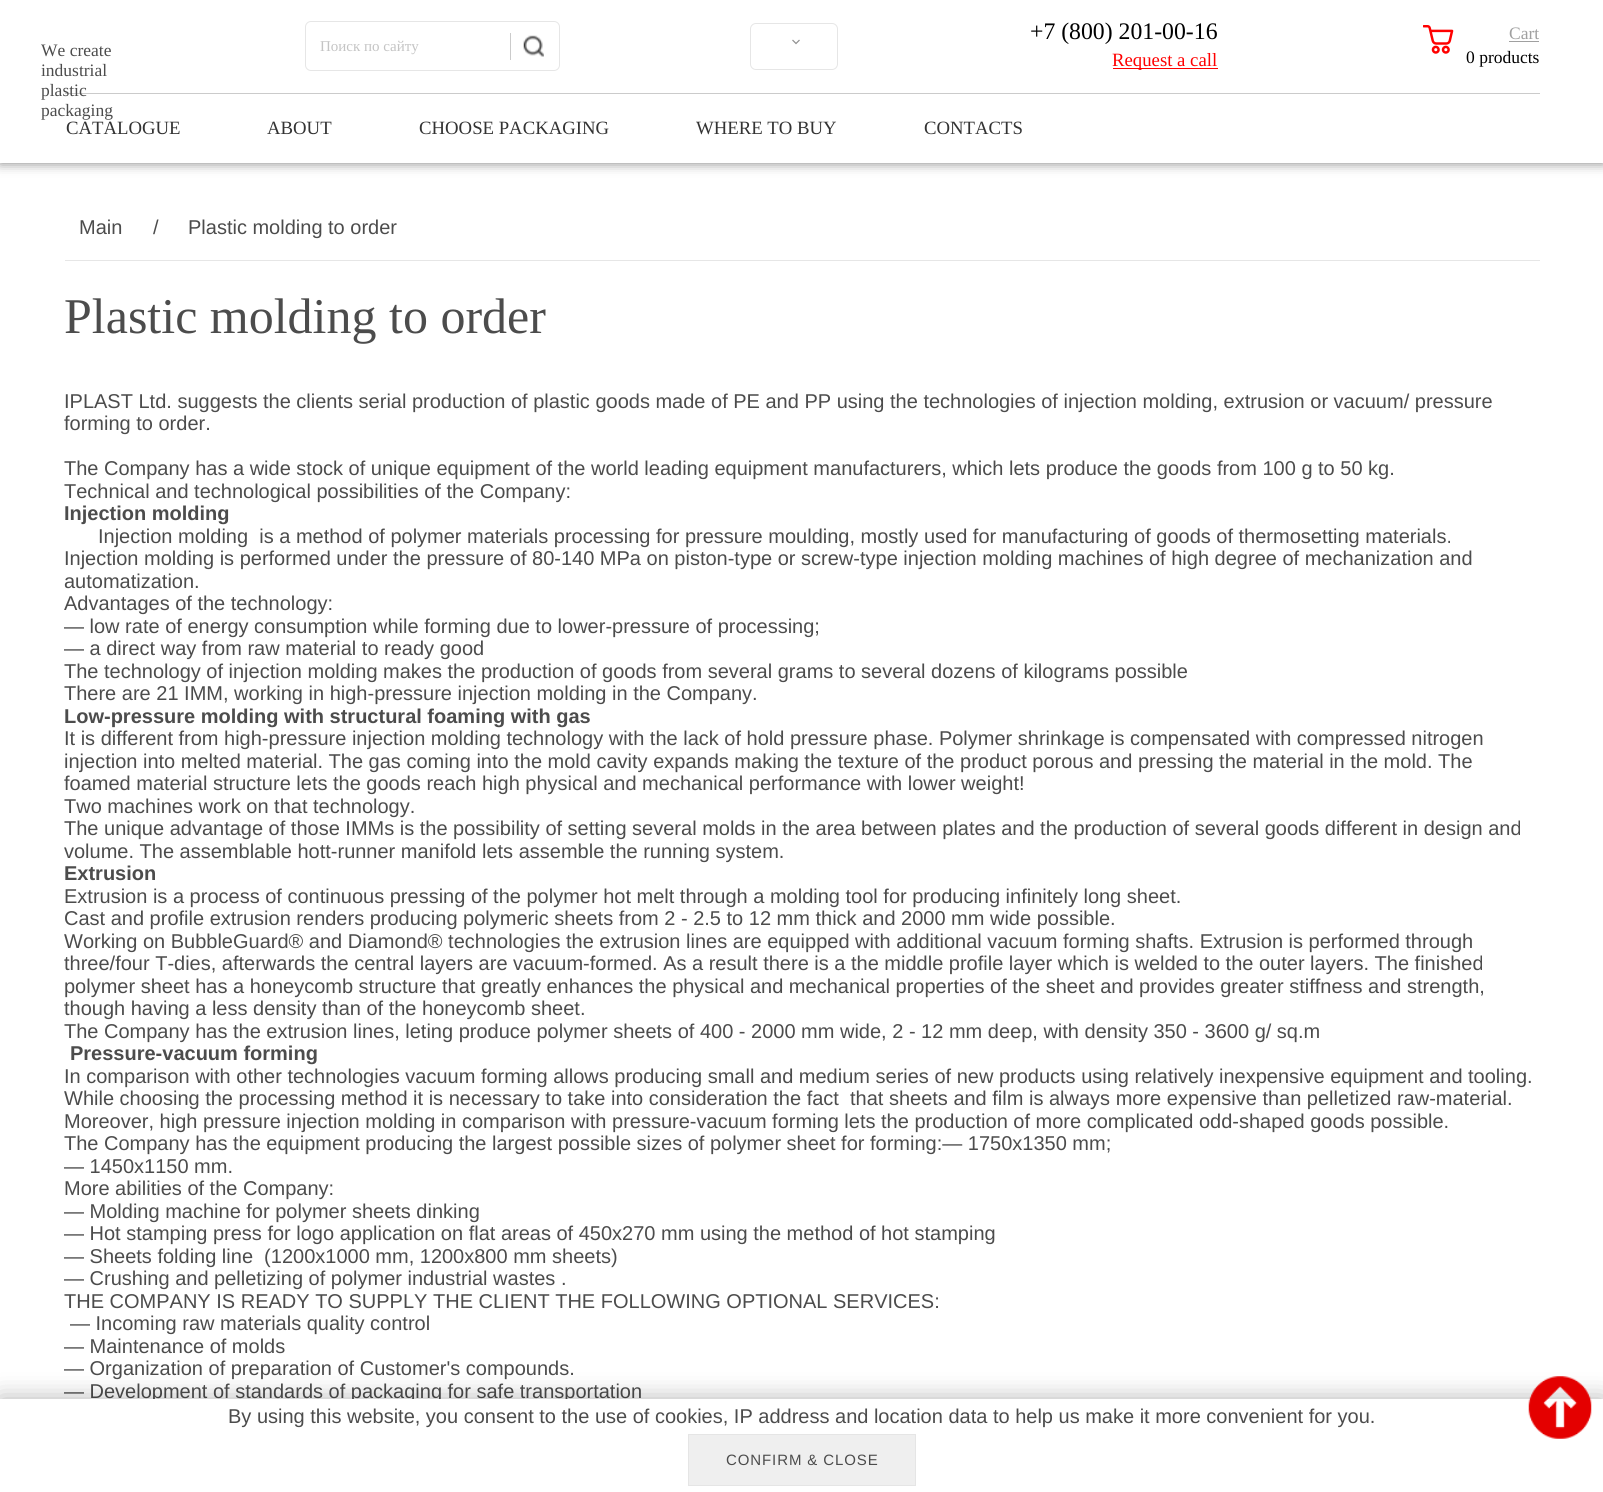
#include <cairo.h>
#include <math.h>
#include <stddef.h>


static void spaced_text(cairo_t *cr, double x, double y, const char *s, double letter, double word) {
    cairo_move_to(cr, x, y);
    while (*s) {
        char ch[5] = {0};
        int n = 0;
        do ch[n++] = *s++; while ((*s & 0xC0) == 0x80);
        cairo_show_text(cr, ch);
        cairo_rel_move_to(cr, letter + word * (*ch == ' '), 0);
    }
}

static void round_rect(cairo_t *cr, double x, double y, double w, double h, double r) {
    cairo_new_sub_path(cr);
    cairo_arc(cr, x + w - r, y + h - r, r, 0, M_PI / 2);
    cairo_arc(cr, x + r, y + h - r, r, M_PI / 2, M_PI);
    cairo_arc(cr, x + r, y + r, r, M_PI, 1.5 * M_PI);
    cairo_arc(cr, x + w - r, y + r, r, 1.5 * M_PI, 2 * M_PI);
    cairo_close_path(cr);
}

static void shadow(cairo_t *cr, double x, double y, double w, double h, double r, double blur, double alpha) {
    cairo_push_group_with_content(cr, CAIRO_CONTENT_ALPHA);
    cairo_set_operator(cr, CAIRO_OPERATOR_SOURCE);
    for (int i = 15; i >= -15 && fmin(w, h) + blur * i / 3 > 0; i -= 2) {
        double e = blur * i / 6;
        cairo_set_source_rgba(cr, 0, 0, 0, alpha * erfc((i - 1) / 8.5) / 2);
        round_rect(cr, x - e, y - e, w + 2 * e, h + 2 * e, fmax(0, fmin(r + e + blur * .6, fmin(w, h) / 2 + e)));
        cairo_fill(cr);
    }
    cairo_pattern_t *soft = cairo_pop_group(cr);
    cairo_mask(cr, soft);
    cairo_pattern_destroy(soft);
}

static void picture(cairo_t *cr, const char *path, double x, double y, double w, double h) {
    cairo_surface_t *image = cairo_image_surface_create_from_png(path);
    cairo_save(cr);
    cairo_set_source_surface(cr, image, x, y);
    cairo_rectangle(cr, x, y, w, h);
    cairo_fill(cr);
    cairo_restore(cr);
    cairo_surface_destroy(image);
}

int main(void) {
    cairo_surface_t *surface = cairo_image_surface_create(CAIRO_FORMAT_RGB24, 1603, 1492);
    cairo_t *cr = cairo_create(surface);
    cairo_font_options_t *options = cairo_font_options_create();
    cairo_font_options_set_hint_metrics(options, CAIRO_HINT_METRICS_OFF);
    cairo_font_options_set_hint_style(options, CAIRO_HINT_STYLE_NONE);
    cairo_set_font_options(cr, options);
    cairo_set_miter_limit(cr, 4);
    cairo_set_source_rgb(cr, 1, 1, 1);
    cairo_paint(cr);
    cairo_save(cr);
    cairo_set_fill_rule(cr, CAIRO_FILL_RULE_EVEN_ODD);
    cairo_new_path(cr);
    cairo_move_to(cr, 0, 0);
    cairo_line_to(cr, 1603, 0);
    cairo_line_to(cr, 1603, 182);
    cairo_line_to(cr, 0, 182);
    cairo_close_path(cr);
    cairo_move_to(cr, 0, 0);
    cairo_line_to(cr, 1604, 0);
    cairo_line_to(cr, 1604, 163);
    cairo_line_to(cr, 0, 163);
    cairo_close_path(cr);
    cairo_clip(cr);
    cairo_set_source_rgb(cr, 0, 0, 0);
    shadow(cr, 0, 0, 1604, 163, 0, 6, 0.5);
    cairo_restore(cr);
    cairo_select_font_face(cr, "Liberation Serif", CAIRO_FONT_SLANT_NORMAL, CAIRO_FONT_WEIGHT_NORMAL);
    cairo_set_font_size(cr, 17.5);
    cairo_set_source_rgb(cr, 0.298, 0.298, 0.298);
    cairo_move_to(cr, 41, 56);
    cairo_show_text(cr, "We create");
    cairo_move_to(cr, 41, 76);
    cairo_show_text(cr, "industrial");
    cairo_set_source_rgb(cr, 0.796, 0.796, 0.796);
    cairo_rectangle(cr, 65, 93, 1475, 1);
    cairo_fill(cr);
    cairo_set_source_rgb(cr, 0.298, 0.298, 0.298);
    cairo_move_to(cr, 41, 96);
    cairo_show_text(cr, "plastic");
    cairo_move_to(cr, 41, 116);
    cairo_show_text(cr, "packaging");
    round_rect(cr, 305.5, 21.5, 254, 49, 5.5);
    cairo_set_source_rgb(cr, 0.902, 0.902, 0.902);
    cairo_set_line_width(cr, 1);
    cairo_stroke(cr);
    cairo_set_font_size(cr, 15);
    cairo_set_source_rgb(cr, 0.769, 0.769, 0.769);
    cairo_move_to(cr, 320, 51);
    cairo_show_text(cr, "Поиск по сайту");
    cairo_set_source_rgb(cr, 0.796, 0.796, 0.796);
    cairo_rectangle(cr, 510, 33, 1, 27);
    cairo_fill(cr);
    picture(cr, "img1.png", 523, 35, 21, 22);
    round_rect(cr, 750.5, 23.5, 87, 46, 5.5);
    cairo_set_source_rgb(cr, 0.902, 0.902, 0.902);
    cairo_stroke(cr);
    cairo_new_path(cr);
    cairo_move_to(cr, 799.5, 40);
    cairo_line_to(cr, 796, 43.5);
    cairo_line_to(cr, 792.5, 40);
    cairo_set_source_rgb(cr, 0.561, 0.561, 0.561);
    cairo_set_line_width(cr, 1.2);
    cairo_stroke(cr);
    cairo_set_font_size(cr, 23.75);
    cairo_set_source_rgb(cr, 0, 0, 0);
    cairo_move_to(cr, 1030, 39);
    cairo_show_text(cr, "+7 (800) 201-00-16");
    cairo_set_source_rgb(cr, 1, 0, 0);
    cairo_rectangle(cr, 1113, 68, 105, 1);
    cairo_fill(cr);
    cairo_set_font_size(cr, 18.75);
    cairo_move_to(cr, 1112, 66);
    cairo_show_text(cr, "Request a call");
    picture(cr, "img2.png", 1423, 25, 31, 29);
    cairo_set_font_size(cr, 17.5);
    cairo_set_source_rgb(cr, 0.627, 0.627, 0.627);
    cairo_move_to(cr, 1509, 39);
    cairo_show_text(cr, "Cart");
    cairo_rectangle(cr, 1509, 41, 30, 1);
    cairo_fill(cr);
    cairo_set_source_rgb(cr, 0, 0, 0);
    cairo_move_to(cr, 1466, 63);
    cairo_show_text(cr, "0 products");
    cairo_set_font_size(cr, 18.75);
    cairo_set_source_rgb(cr, 0.2, 0.2, 0.2);
    cairo_move_to(cr, 66, 134);
    cairo_show_text(cr, "CATALOGUE");
    cairo_move_to(cr, 267, 134);
    cairo_show_text(cr, "ABOUT");
    cairo_move_to(cr, 419, 134);
    cairo_show_text(cr, "CHOOSE PACKAGING");
    cairo_move_to(cr, 696, 134);
    cairo_show_text(cr, "WHERE TO BUY");
    cairo_move_to(cr, 924, 134);
    cairo_show_text(cr, "CONTACTS");
    cairo_set_source_rgb(cr, 0.902, 0.902, 0.902);
    cairo_rectangle(cr, 65, 260, 1475, 1);
    cairo_fill(cr);
    cairo_select_font_face(cr, "Liberation Sans", CAIRO_FONT_SLANT_NORMAL, CAIRO_FONT_WEIGHT_NORMAL);
    cairo_set_font_size(cr, 20);
    cairo_set_source_rgb(cr, 0.298, 0.298, 0.298);
    cairo_move_to(cr, 79, 234);
    cairo_show_text(cr, "Main");
    cairo_move_to(cr, 153, 234);
    cairo_show_text(cr, "/");
    cairo_move_to(cr, 188, 234);
    cairo_show_text(cr, "Plastic molding to order");
    cairo_select_font_face(cr, "Liberation Serif", CAIRO_FONT_SLANT_NORMAL, CAIRO_FONT_WEIGHT_NORMAL);
    cairo_set_font_size(cr, 50);
    cairo_move_to(cr, 64, 333);
    cairo_show_text(cr, "Plastic molding to order");
    cairo_select_font_face(cr, "Liberation Sans", CAIRO_FONT_SLANT_NORMAL, CAIRO_FONT_WEIGHT_NORMAL);
    cairo_set_font_size(cr, 20);
    cairo_move_to(cr, 64, 408);
    cairo_show_text(cr, "IPLAST Ltd. suggests the clients serial production of plastic goods made of PE and PP using the technologies of injection molding, extrusion or vacuum/ pressure");
    cairo_move_to(cr, 64, 430);
    cairo_show_text(cr, "forming to order.");
    cairo_move_to(cr, 64, 475);
    cairo_show_text(cr, "The Company has a wide stock of unique equipment of the world leading equipment manufacturers, which lets produce the goods from 100 g to 50 kg.");
    cairo_move_to(cr, 64, 498);
    cairo_show_text(cr, "Technical and technological possibilities of the Company:");
    cairo_select_font_face(cr, "Liberation Sans", CAIRO_FONT_SLANT_NORMAL, CAIRO_FONT_WEIGHT_BOLD);
    cairo_move_to(cr, 64, 520);
    cairo_show_text(cr, "Injection molding");
    cairo_select_font_face(cr, "Liberation Sans", CAIRO_FONT_SLANT_NORMAL, CAIRO_FONT_WEIGHT_NORMAL);
    cairo_move_to(cr, 98, 543);
    cairo_show_text(cr, "Injection molding  is a method of polymer materials processing for pressure moulding, mostly used for manufacturing of goods of thermosetting materials.");
    cairo_move_to(cr, 64, 565);
    cairo_show_text(cr, "Injection molding is performed under the pressure of 80-140 MPa on piston-type or screw-type injection molding machines of high degree of mechanization and");
    cairo_move_to(cr, 64, 588);
    cairo_show_text(cr, "automatization.");
    cairo_move_to(cr, 64, 610);
    cairo_show_text(cr, "Advantages of the technology:");
    cairo_move_to(cr, 64, 633);
    cairo_show_text(cr, "— low rate of energy consumption while forming due to lower-pressure of processing;");
    cairo_move_to(cr, 64, 655);
    cairo_show_text(cr, "— a direct way from raw material to ready good");
    cairo_move_to(cr, 64, 678);
    cairo_show_text(cr, "The technology of injection molding makes the production of goods from several grams to several dozens of kilograms possible");
    cairo_move_to(cr, 64, 700);
    cairo_show_text(cr, "There are 21 IMM, working in high-pressure injection molding in the Company.");
    cairo_select_font_face(cr, "Liberation Sans", CAIRO_FONT_SLANT_NORMAL, CAIRO_FONT_WEIGHT_BOLD);
    cairo_move_to(cr, 64, 723);
    cairo_show_text(cr, "Low-pressure molding with structural foaming with gas");
    cairo_select_font_face(cr, "Liberation Sans", CAIRO_FONT_SLANT_NORMAL, CAIRO_FONT_WEIGHT_NORMAL);
    cairo_move_to(cr, 64, 745);
    cairo_show_text(cr, "It is different from high-pressure injection molding technology with the lack of hold pressure phase. Polymer shrinkage is compensated with compressed nitrogen");
    cairo_move_to(cr, 64, 768);
    cairo_show_text(cr, "injection into melted material. The gas coming into the mold cavity expands making the texture of the product porous and pressing the material in the mold. The");
    cairo_move_to(cr, 64, 790);
    cairo_show_text(cr, "foamed material structure lets the goods reach high physical and mechanical performance with lower weight!");
    cairo_move_to(cr, 64, 813);
    cairo_show_text(cr, "Two machines work on that technology.");
    cairo_move_to(cr, 64, 835);
    cairo_show_text(cr, "The unique advantage of those IMMs is the possibility of setting several molds in the area between plates and the production of several goods different in design and");
    cairo_move_to(cr, 64, 858);
    cairo_show_text(cr, "volume. The assemblable hott-runner manifold lets assemble the running system.");
    cairo_select_font_face(cr, "Liberation Sans", CAIRO_FONT_SLANT_NORMAL, CAIRO_FONT_WEIGHT_BOLD);
    cairo_move_to(cr, 64, 880);
    cairo_show_text(cr, "Extrusion");
    cairo_select_font_face(cr, "Liberation Sans", CAIRO_FONT_SLANT_NORMAL, CAIRO_FONT_WEIGHT_NORMAL);
    cairo_move_to(cr, 64, 903);
    cairo_show_text(cr, "Extrusion is a process of continuous pressing of the polymer hot melt through a molding tool for producing infinitely long sheet.");
    cairo_move_to(cr, 64, 925);
    cairo_show_text(cr, "Cast and profile extrusion renders producing polymeric sheets from 2 - 2.5 to 12 mm thick and 2000 mm wide possible.");
    cairo_move_to(cr, 64, 948);
    cairo_show_text(cr, "Working on BubbleGuard® and Diamond® technologies the extrusion lines are equipped with additional vacuum forming shafts. Extrusion is performed through");
    cairo_move_to(cr, 64, 970);
    cairo_show_text(cr, "three/four T-dies, afterwards the central layers are vacuum-formed. As a result there is a the middle profile layer which is welded to the outer layers. The finished");
    cairo_move_to(cr, 64, 993);
    cairo_show_text(cr, "polymer sheet has a honeycomb structure that greatly enhances the physical and mechanical properties of the sheet and provides greater stiffness and strength,");
    cairo_move_to(cr, 64, 1015);
    cairo_show_text(cr, "though having a less density than of the honeycomb sheet.");
    cairo_move_to(cr, 64, 1038);
    cairo_show_text(cr, "The Company has the extrusion lines, leting produce polymer sheets of 400 - 2000 mm wide, 2 - 12 mm deep, with density 350 - 3600 g/ sq.m");
    cairo_select_font_face(cr, "Liberation Sans", CAIRO_FONT_SLANT_NORMAL, CAIRO_FONT_WEIGHT_BOLD);
    cairo_move_to(cr, 70, 1060);
    cairo_show_text(cr, "Pressure-vacuum forming");
    cairo_select_font_face(cr, "Liberation Sans", CAIRO_FONT_SLANT_NORMAL, CAIRO_FONT_WEIGHT_NORMAL);
    cairo_move_to(cr, 64, 1083);
    cairo_show_text(cr, "In comparison with other technologies vacuum forming allows producing small and medium series of new products using relatively inexpensive equipment and tooling.");
    cairo_move_to(cr, 64, 1105);
    cairo_show_text(cr, "While choosing the processing method it is necessary to take into consideration the fact  that sheets and film is always more expensive than pelletized raw-material.");
    cairo_move_to(cr, 64, 1128);
    cairo_show_text(cr, "Moreover, high pressure injection molding in comparison with pressure-vacuum forming lets the production of more complicated odd-shaped goods possible.");
    cairo_move_to(cr, 64, 1150);
    cairo_show_text(cr, "The Company has the equipment producing the largest possible sizes of polymer sheet for forming:— 1750х1350 mm;");
    cairo_move_to(cr, 64, 1173);
    cairo_show_text(cr, "— 1450х1150 mm.");
    cairo_move_to(cr, 64, 1195);
    cairo_show_text(cr, "More abilities of the Company:");
    cairo_move_to(cr, 64, 1218);
    cairo_show_text(cr, "— Molding machine for polymer sheets dinking");
    cairo_move_to(cr, 64, 1240);
    cairo_show_text(cr, "— Hot stamping press for logo application on flat areas of 450х270 mm using the method of hot stamping");
    cairo_move_to(cr, 64, 1263);
    cairo_show_text(cr, "— Sheets folding line  (1200х1000 mm, 1200х800 mm sheets)");
    cairo_move_to(cr, 64, 1285);
    cairo_show_text(cr, "— Crushing and pelletizing of polymer industrial wastes .");
    cairo_move_to(cr, 64, 1308);
    cairo_show_text(cr, "THE COMPANY IS READY TO SUPPLY THE CLIENT THE FOLLOWING OPTIONAL SERVICES:");
    cairo_move_to(cr, 70, 1330);
    cairo_show_text(cr, "— Incoming raw materials quality control");
    cairo_move_to(cr, 64, 1353);
    cairo_show_text(cr, "— Maintenance of molds");
    cairo_move_to(cr, 64, 1375);
    cairo_show_text(cr, "— Organization of preparation of Customer's compounds.");
    cairo_move_to(cr, 64, 1398);
    cairo_show_text(cr, "— Development of standards of packaging for safe transportation");
    cairo_set_source_rgb(cr, 0, 0, 0);
    shadow(cr, 0, 1399, 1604, 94, 0, 12.5, 0.3);
    cairo_set_source_rgb(cr, 1, 1, 1);
    cairo_rectangle(cr, 0, 1399, 1603, 93);
    cairo_fill(cr);
    picture(cr, "img3.png", 1528, 1376, 64, 63);
    cairo_set_source_rgb(cr, 0.298, 0.298, 0.298);
    cairo_move_to(cr, 228, 1423);
    cairo_show_text(cr, "By using this website, you consent to the use of cookies, IP address and location data to help us make it more convenient for you.");
    cairo_set_source_rgb(cr, 0.937, 0.937, 0.937);
    cairo_rectangle(cr, 688.5, 1434.5, 227, 51);
    cairo_fill_preserve(cr);
    cairo_set_source_rgb(cr, 0.898, 0.898, 0.898);
    cairo_set_line_width(cr, 1);
    cairo_stroke(cr);
    cairo_set_font_size(cr, 15);
    cairo_set_source_rgb(cr, 0.298, 0.298, 0.298);
    spaced_text(cr, 726, 1465, "CONFIRM & CLOSE", 0.9, 0);
    cairo_surface_write_to_png(surface, "page.png");
    cairo_font_options_destroy(options);
    cairo_destroy(cr);
    cairo_surface_destroy(surface);
    return 0;
}
